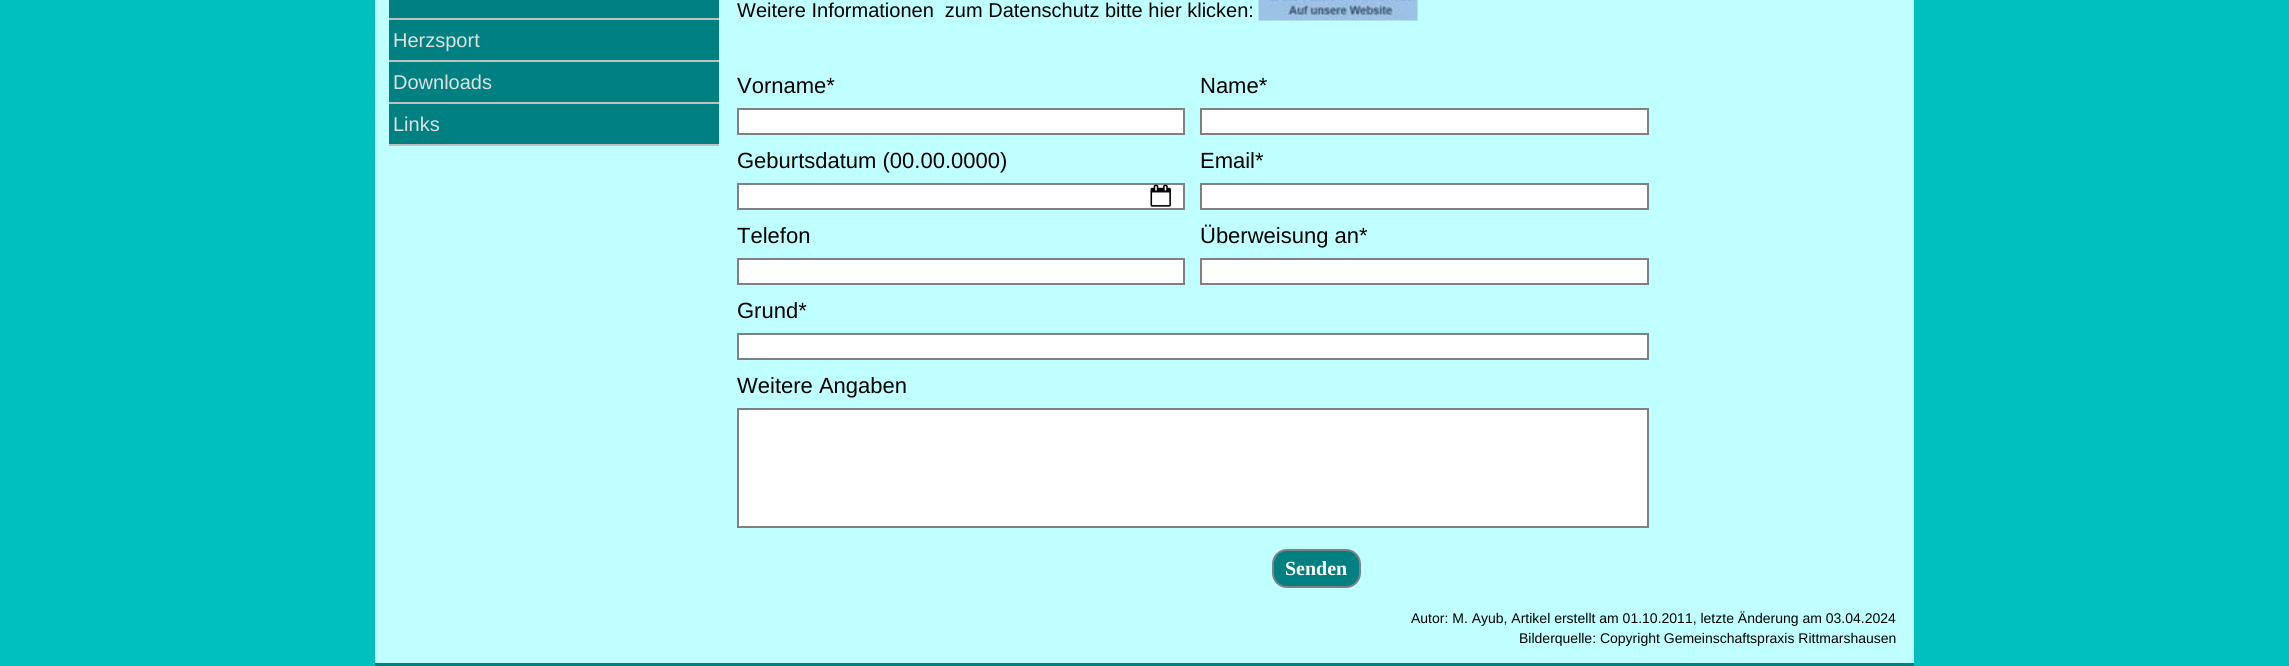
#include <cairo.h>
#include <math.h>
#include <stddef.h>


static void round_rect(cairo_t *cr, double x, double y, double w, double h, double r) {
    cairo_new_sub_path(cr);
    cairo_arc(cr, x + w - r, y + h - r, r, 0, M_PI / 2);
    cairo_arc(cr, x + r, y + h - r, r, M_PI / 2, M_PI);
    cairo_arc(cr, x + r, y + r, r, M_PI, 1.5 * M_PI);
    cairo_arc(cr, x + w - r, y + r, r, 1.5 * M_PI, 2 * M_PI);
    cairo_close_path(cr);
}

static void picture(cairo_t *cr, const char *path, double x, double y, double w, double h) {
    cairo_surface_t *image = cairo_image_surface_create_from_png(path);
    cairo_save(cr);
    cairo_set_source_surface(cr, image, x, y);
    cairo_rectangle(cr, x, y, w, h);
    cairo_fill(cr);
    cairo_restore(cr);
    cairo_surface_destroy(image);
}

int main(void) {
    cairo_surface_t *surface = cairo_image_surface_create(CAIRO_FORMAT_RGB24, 2289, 666);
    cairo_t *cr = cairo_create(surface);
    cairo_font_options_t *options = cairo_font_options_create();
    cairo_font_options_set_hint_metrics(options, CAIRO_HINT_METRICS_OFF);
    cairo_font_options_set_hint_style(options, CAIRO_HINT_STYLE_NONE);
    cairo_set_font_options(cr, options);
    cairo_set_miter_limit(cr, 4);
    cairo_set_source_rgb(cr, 0, 0.749, 0.749);
    cairo_paint(cr);
    cairo_set_source_rgb(cr, 0.749, 1, 1);
    cairo_rectangle(cr, 375, 0, 1539, 663);
    cairo_fill(cr);
    cairo_select_font_face(cr, "Liberation Sans", CAIRO_FONT_SLANT_NORMAL, CAIRO_FONT_WEIGHT_NORMAL);
    cairo_set_font_size(cr, 20);
    cairo_set_source_rgb(cr, 0, 0, 0);
    cairo_move_to(cr, 737, 17);
    cairo_show_text(cr, "Weitere Informationen  zum Datenschutz bitte hier klicken:");
    picture(cr, "img1.png", 1258, 0, 160, 21);
    cairo_set_source_rgb(cr, 0, 0.502, 0.502);
    cairo_rectangle(cr, 389, 0, 330, 18);
    cairo_fill(cr);
    cairo_set_source_rgb(cr, 0.753, 0.753, 0.753);
    cairo_rectangle(cr, 389, 18, 330, 2);
    cairo_fill(cr);
    cairo_set_source_rgb(cr, 0, 0.502, 0.502);
    cairo_rectangle(cr, 389, 20, 330, 40);
    cairo_fill(cr);
    cairo_set_source_rgb(cr, 0.753, 0.753, 0.753);
    cairo_rectangle(cr, 389, 60, 330, 2);
    cairo_fill(cr);
    cairo_set_source_rgb(cr, 0.878, 0.878, 0.878);
    cairo_move_to(cr, 393, 47);
    cairo_show_text(cr, "Herzsport");
    cairo_set_source_rgb(cr, 0, 0.502, 0.502);
    cairo_rectangle(cr, 389, 62, 330, 40);
    cairo_fill(cr);
    cairo_set_source_rgb(cr, 0.753, 0.753, 0.753);
    cairo_rectangle(cr, 389, 102, 330, 2);
    cairo_fill(cr);
    cairo_set_source_rgb(cr, 0.878, 0.878, 0.878);
    cairo_move_to(cr, 393, 89);
    cairo_show_text(cr, "Downloads");
    cairo_set_source_rgb(cr, 0, 0.502, 0.502);
    cairo_rectangle(cr, 389, 104, 330, 40);
    cairo_fill(cr);
    cairo_set_source_rgb(cr, 0.753, 0.753, 0.753);
    cairo_rectangle(cr, 389, 144, 330, 2);
    cairo_fill(cr);
    cairo_set_source_rgb(cr, 0.878, 0.878, 0.878);
    cairo_move_to(cr, 393, 131);
    cairo_show_text(cr, "Links");
    cairo_set_font_size(cr, 22);
    cairo_set_source_rgb(cr, 0, 0, 0);
    cairo_move_to(cr, 737, 93);
    cairo_show_text(cr, "Vorname*");
    cairo_set_source_rgb(cr, 1, 1, 1);
    cairo_rectangle(cr, 738, 109, 446, 25);
    cairo_fill_preserve(cr);
    cairo_set_source_rgb(cr, 0.502, 0.502, 0.502);
    cairo_stroke(cr);
    cairo_set_source_rgb(cr, 0, 0, 0);
    cairo_move_to(cr, 1200, 93);
    cairo_show_text(cr, "Name*");
    cairo_set_source_rgb(cr, 1, 1, 1);
    cairo_rectangle(cr, 1201, 109, 447, 25);
    cairo_fill_preserve(cr);
    cairo_set_source_rgb(cr, 0.502, 0.502, 0.502);
    cairo_stroke(cr);
    cairo_set_source_rgb(cr, 0, 0, 0);
    cairo_move_to(cr, 737, 168);
    cairo_show_text(cr, "Geburtsdatum (00.00.0000)");
    cairo_set_source_rgb(cr, 1, 1, 1);
    cairo_rectangle(cr, 738, 184, 446, 25);
    cairo_fill_preserve(cr);
    cairo_set_source_rgb(cr, 0.502, 0.502, 0.502);
    cairo_stroke(cr);
    picture(cr, "img2.png", 1150, 184, 21, 23);
    cairo_set_source_rgb(cr, 0, 0, 0);
    cairo_move_to(cr, 1200, 168);
    cairo_show_text(cr, "Email*");
    cairo_set_source_rgb(cr, 1, 1, 1);
    cairo_rectangle(cr, 1201, 184, 447, 25);
    cairo_fill_preserve(cr);
    cairo_set_source_rgb(cr, 0.502, 0.502, 0.502);
    cairo_stroke(cr);
    cairo_set_source_rgb(cr, 0, 0, 0);
    cairo_move_to(cr, 737, 243);
    cairo_show_text(cr, "Telefon");
    cairo_set_source_rgb(cr, 1, 1, 1);
    cairo_rectangle(cr, 738, 259, 446, 25);
    cairo_fill_preserve(cr);
    cairo_set_source_rgb(cr, 0.502, 0.502, 0.502);
    cairo_stroke(cr);
    cairo_set_source_rgb(cr, 0, 0, 0);
    cairo_move_to(cr, 1200, 243);
    cairo_show_text(cr, "Überweisung an*");
    cairo_set_source_rgb(cr, 1, 1, 1);
    cairo_rectangle(cr, 1201, 259, 447, 25);
    cairo_fill_preserve(cr);
    cairo_set_source_rgb(cr, 0.502, 0.502, 0.502);
    cairo_stroke(cr);
    cairo_set_source_rgb(cr, 0, 0, 0);
    cairo_move_to(cr, 737, 318);
    cairo_show_text(cr, "Grund*");
    cairo_set_source_rgb(cr, 1, 1, 1);
    cairo_rectangle(cr, 738, 334, 910, 25);
    cairo_fill_preserve(cr);
    cairo_set_source_rgb(cr, 0.502, 0.502, 0.502);
    cairo_stroke(cr);
    cairo_set_source_rgb(cr, 0, 0, 0);
    cairo_move_to(cr, 737, 393);
    cairo_show_text(cr, "Weitere Angaben");
    cairo_set_source_rgb(cr, 1, 1, 1);
    cairo_rectangle(cr, 738, 409, 910, 118);
    cairo_fill_preserve(cr);
    cairo_set_source_rgb(cr, 0.502, 0.502, 0.502);
    cairo_stroke(cr);
    cairo_set_source_rgb(cr, 0, 0.502, 0.502);
    round_rect(cr, 1273, 550, 87, 37, 14);
    cairo_fill_preserve(cr);
    cairo_set_source_rgb(cr, 0.502, 0.502, 0.502);
    cairo_stroke(cr);
    cairo_select_font_face(cr, "Liberation Serif", CAIRO_FONT_SLANT_NORMAL, CAIRO_FONT_WEIGHT_BOLD);
    cairo_set_font_size(cr, 20);
    cairo_set_source_rgb(cr, 1, 1, 1);
    cairo_move_to(cr, 1285, 575);
    cairo_show_text(cr, "Senden");
    cairo_select_font_face(cr, "Liberation Sans", CAIRO_FONT_SLANT_NORMAL, CAIRO_FONT_WEIGHT_NORMAL);
    cairo_set_font_size(cr, 14);
    cairo_set_source_rgb(cr, 0, 0, 0);
    cairo_move_to(cr, 1411, 623);
    cairo_show_text(cr, "Autor: M. Ayub, Artikel erstellt am 01.10.2011, letzte Änderung am 03.04.2024");
    cairo_move_to(cr, 1519, 643);
    cairo_show_text(cr, "Bilderquelle: Copyright Gemeinschaftspraxis Rittmarshausen");
    cairo_set_source_rgb(cr, 0, 0.502, 0.502);
    cairo_rectangle(cr, 375, 663, 1539, 3);
    cairo_fill(cr);
    cairo_surface_write_to_png(surface, "page.png");
    cairo_font_options_destroy(options);
    cairo_destroy(cr);
    cairo_surface_destroy(surface);
    return 0;
}
